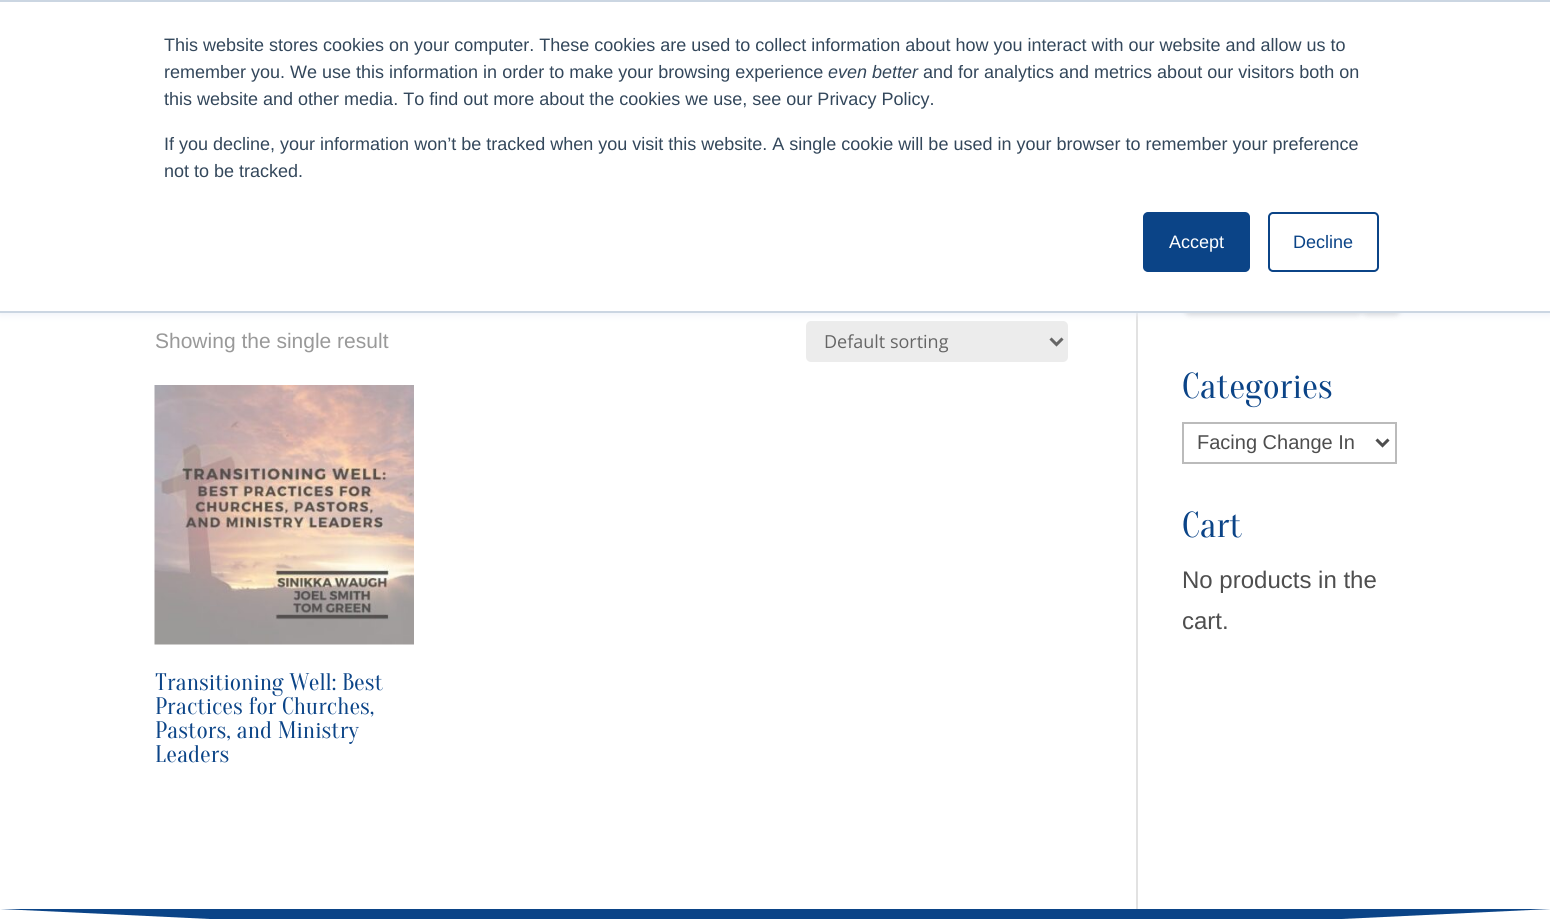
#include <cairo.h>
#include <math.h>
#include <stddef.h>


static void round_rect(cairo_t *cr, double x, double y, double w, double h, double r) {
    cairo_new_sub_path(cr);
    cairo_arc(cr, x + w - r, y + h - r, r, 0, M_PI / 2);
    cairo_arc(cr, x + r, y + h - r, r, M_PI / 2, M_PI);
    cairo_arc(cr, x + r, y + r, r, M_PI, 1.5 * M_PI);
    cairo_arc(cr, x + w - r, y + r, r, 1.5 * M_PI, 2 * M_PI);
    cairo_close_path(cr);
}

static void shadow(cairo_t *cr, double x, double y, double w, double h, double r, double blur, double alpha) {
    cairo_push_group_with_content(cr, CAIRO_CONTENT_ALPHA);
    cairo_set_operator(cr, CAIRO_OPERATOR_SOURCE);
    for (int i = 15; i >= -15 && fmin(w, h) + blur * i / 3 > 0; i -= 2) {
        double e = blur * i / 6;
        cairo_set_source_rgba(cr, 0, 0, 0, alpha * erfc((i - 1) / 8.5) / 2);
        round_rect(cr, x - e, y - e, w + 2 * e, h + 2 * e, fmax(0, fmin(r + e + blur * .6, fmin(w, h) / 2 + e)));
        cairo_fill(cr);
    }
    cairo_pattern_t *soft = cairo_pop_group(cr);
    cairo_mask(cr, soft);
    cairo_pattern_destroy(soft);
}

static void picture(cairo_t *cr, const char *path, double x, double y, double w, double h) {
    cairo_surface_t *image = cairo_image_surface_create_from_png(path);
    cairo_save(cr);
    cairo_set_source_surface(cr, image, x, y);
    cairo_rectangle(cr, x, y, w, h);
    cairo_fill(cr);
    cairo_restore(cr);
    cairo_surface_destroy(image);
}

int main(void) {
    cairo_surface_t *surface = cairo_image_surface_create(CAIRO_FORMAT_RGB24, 1550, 919);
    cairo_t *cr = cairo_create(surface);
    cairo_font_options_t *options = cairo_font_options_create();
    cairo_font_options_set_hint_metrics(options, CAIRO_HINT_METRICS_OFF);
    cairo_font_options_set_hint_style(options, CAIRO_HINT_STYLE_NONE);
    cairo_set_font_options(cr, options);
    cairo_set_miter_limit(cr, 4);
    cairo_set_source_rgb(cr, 1, 1, 1);
    cairo_paint(cr);
    cairo_set_source_rgb(cr, 0.886, 0.886, 0.886);
    cairo_rectangle(cr, 1136, 313, 2, 596);
    cairo_fill(cr);
    cairo_set_source_rgb(cr, 0.925, 0.925, 0.925);
    round_rect(cr, 806, 321, 262, 41, 5);
    cairo_fill(cr);
    cairo_set_source_rgb(cr, 0.918, 0.941, 0.965);
    shadow(cr, 0, 2, 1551, 312, 0, 4, 1);
    cairo_set_source_rgb(cr, 0, 0, 0);
    shadow(cr, 1185, 249, 177, 66, 5, 3, 0.12);
    shadow(cr, 1362, 249, 38, 66, 5, 3, 0.12);
    cairo_set_source_rgb(cr, 1, 1, 1);
    cairo_rectangle(cr, 0, 2, 1550, 309);
    cairo_fill(cr);
    cairo_set_source_rgb(cr, 0.796, 0.839, 0.886);
    cairo_rectangle(cr, 0, 0, 1550, 2);
    cairo_fill(cr);
    cairo_rectangle(cr, 0, 311, 1550, 2);
    cairo_fill(cr);
    cairo_select_font_face(cr, "Liberation Sans", CAIRO_FONT_SLANT_NORMAL, CAIRO_FONT_WEIGHT_NORMAL);
    cairo_set_font_size(cr, 18);
    cairo_set_source_rgb(cr, 0.2, 0.278, 0.357);
    cairo_move_to(cr, 164, 51);
    cairo_show_text(cr, "This website stores cookies on your computer. These cookies are used to collect information about how you interact with our website and allow us to");
    cairo_move_to(cr, 164, 78);
    cairo_show_text(cr, "remember you. We use this information in order to make your browsing experience");
    cairo_select_font_face(cr, "Liberation Sans", CAIRO_FONT_SLANT_ITALIC, CAIRO_FONT_WEIGHT_NORMAL);
    cairo_move_to(cr, 828, 78);
    cairo_show_text(cr, "even better");
    cairo_select_font_face(cr, "Liberation Sans", CAIRO_FONT_SLANT_NORMAL, CAIRO_FONT_WEIGHT_NORMAL);
    cairo_move_to(cr, 923, 78);
    cairo_show_text(cr, "and for analytics and metrics about our visitors both on");
    cairo_move_to(cr, 164, 105);
    cairo_show_text(cr, "this website and other media. To find out more about the cookies we use, see our Privacy Policy.");
    cairo_move_to(cr, 164, 150);
    cairo_show_text(cr, "If you decline, your information won’t be tracked when you visit this website. A single cookie will be used in your browser to remember your preference");
    cairo_move_to(cr, 164, 177);
    cairo_show_text(cr, "not to be tracked.");
    cairo_set_source_rgb(cr, 0.043, 0.267, 0.529);
    round_rect(cr, 1144, 213, 105, 58, 4);
    cairo_fill_preserve(cr);
    cairo_stroke(cr);
    cairo_set_source_rgb(cr, 1, 1, 1);
    cairo_move_to(cr, 1169, 248);
    cairo_show_text(cr, "Accept");
    round_rect(cr, 1269, 213, 109, 58, 4);
    cairo_set_source_rgb(cr, 0.043, 0.267, 0.529);
    cairo_stroke(cr);
    cairo_move_to(cr, 1293, 248);
    cairo_show_text(cr, "Decline");
    cairo_set_font_size(cr, 21);
    cairo_set_source_rgb(cr, 0.6, 0.6, 0.6);
    cairo_move_to(cr, 155, 348);
    cairo_show_text(cr, "Showing the single result");
    cairo_new_path(cr);
    cairo_move_to(cr, 1050.5, 338.5);
    cairo_line_to(cr, 1056.5, 344.5);
    cairo_line_to(cr, 1062.5, 338.5);
    cairo_set_source_rgb(cr, 0.4, 0.4, 0.4);
    cairo_set_line_width(cr, 3);
    cairo_stroke(cr);
    cairo_select_font_face(cr, "Open Sans", CAIRO_FONT_SLANT_NORMAL, CAIRO_FONT_WEIGHT_NORMAL);
    cairo_set_font_size(cr, 18);
    cairo_move_to(cr, 824, 348);
    cairo_show_text(cr, "Default sorting");
    picture(cr, "img1.png", 154, 385, 260, 260);
    cairo_select_font_face(cr, "Oranienbaum", CAIRO_FONT_SLANT_NORMAL, CAIRO_FONT_WEIGHT_NORMAL);
    cairo_set_font_size(cr, 24);
    cairo_set_source_rgb(cr, 0.043, 0.267, 0.529);
    cairo_move_to(cr, 155, 690);
    cairo_show_text(cr, "Transitioning Well: Best");
    cairo_move_to(cr, 155, 714);
    cairo_show_text(cr, "Practices for Churches,");
    cairo_move_to(cr, 155, 738);
    cairo_show_text(cr, "Pastors, and Ministry");
    cairo_move_to(cr, 155, 762);
    cairo_show_text(cr, "Leaders");
    cairo_set_font_size(cr, 36);
    cairo_move_to(cr, 1182, 398);
    cairo_show_text(cr, "Categories");
    cairo_rectangle(cr, 1183, 423, 213, 40);
    cairo_set_source_rgb(cr, 0.733, 0.733, 0.733);
    cairo_set_line_width(cr, 2);
    cairo_stroke(cr);
    cairo_new_path(cr);
    cairo_move_to(cr, 1376.5, 439.5);
    cairo_line_to(cr, 1382.5, 445.5);
    cairo_line_to(cr, 1388.5, 439.5);
    cairo_set_source_rgb(cr, 0.306, 0.306, 0.306);
    cairo_set_line_width(cr, 3);
    cairo_stroke(cr);
    cairo_select_font_face(cr, "Liberation Sans", CAIRO_FONT_SLANT_NORMAL, CAIRO_FONT_WEIGHT_NORMAL);
    cairo_set_font_size(cr, 20);
    cairo_move_to(cr, 1197, 449);
    cairo_show_text(cr, "Facing Change In");
    cairo_select_font_face(cr, "Oranienbaum", CAIRO_FONT_SLANT_NORMAL, CAIRO_FONT_WEIGHT_NORMAL);
    cairo_set_font_size(cr, 36);
    cairo_set_source_rgb(cr, 0.043, 0.267, 0.529);
    cairo_move_to(cr, 1182, 537);
    cairo_show_text(cr, "Cart");
    cairo_select_font_face(cr, "Liberation Sans", CAIRO_FONT_SLANT_NORMAL, CAIRO_FONT_WEIGHT_NORMAL);
    cairo_set_font_size(cr, 24);
    cairo_set_source_rgb(cr, 0.306, 0.306, 0.306);
    cairo_move_to(cr, 1182, 588);
    cairo_show_text(cr, "No products in the");
    cairo_move_to(cr, 1182, 629);
    cairo_show_text(cr, "cart.");
    cairo_set_source_rgb(cr, 0.043, 0.267, 0.529);
    cairo_new_path(cr);
    cairo_move_to(cr, 776, 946);
    cairo_line_to(cr, 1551, 909);
    cairo_line_to(cr, 0, 909);
    cairo_close_path(cr);
    cairo_fill(cr);
    cairo_surface_write_to_png(surface, "page.png");
    cairo_font_options_destroy(options);
    cairo_destroy(cr);
    cairo_surface_destroy(surface);
    return 0;
}
